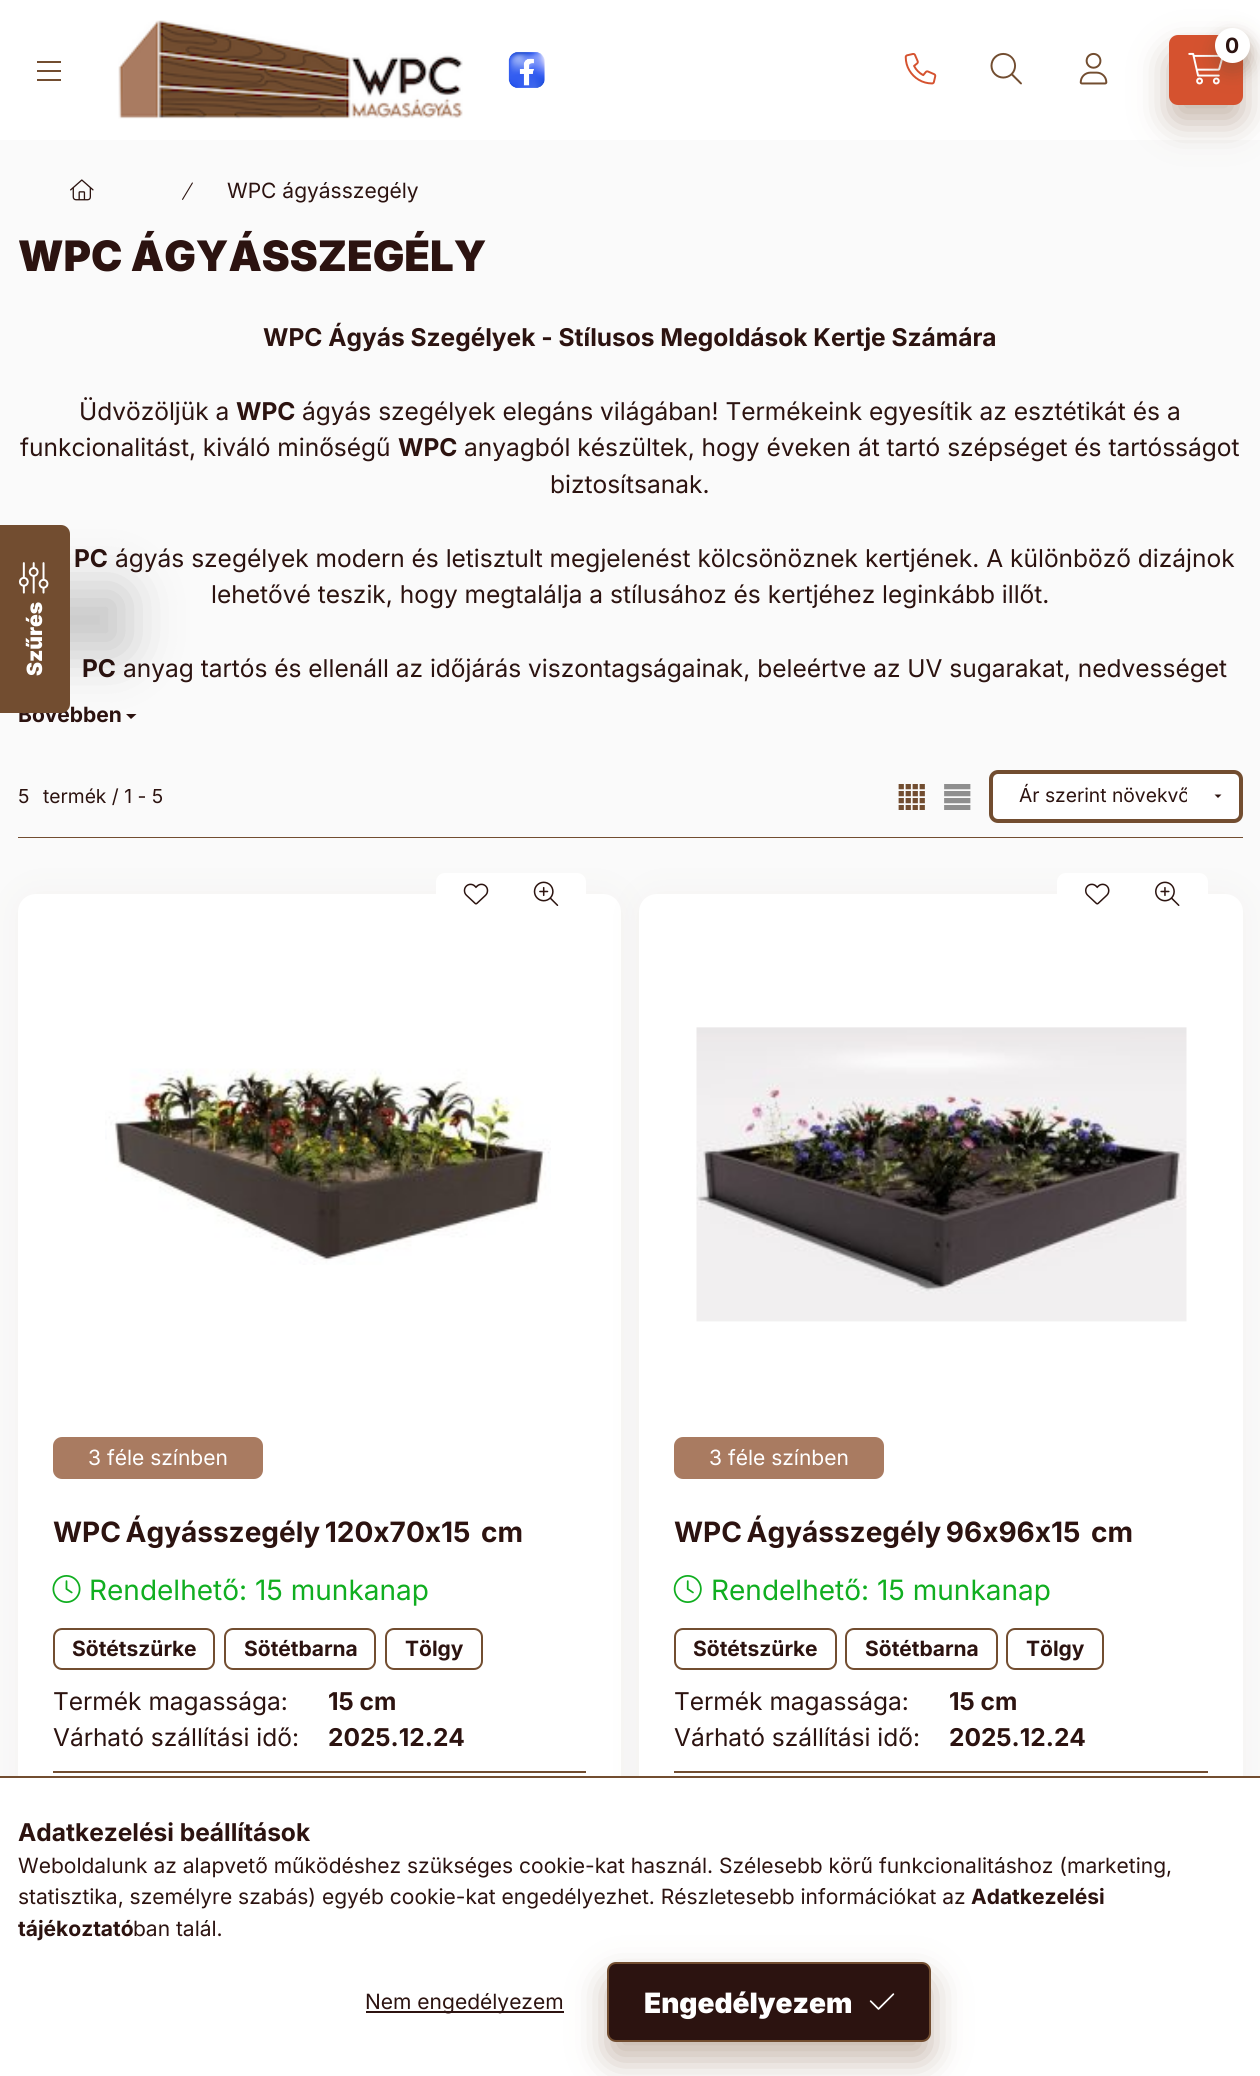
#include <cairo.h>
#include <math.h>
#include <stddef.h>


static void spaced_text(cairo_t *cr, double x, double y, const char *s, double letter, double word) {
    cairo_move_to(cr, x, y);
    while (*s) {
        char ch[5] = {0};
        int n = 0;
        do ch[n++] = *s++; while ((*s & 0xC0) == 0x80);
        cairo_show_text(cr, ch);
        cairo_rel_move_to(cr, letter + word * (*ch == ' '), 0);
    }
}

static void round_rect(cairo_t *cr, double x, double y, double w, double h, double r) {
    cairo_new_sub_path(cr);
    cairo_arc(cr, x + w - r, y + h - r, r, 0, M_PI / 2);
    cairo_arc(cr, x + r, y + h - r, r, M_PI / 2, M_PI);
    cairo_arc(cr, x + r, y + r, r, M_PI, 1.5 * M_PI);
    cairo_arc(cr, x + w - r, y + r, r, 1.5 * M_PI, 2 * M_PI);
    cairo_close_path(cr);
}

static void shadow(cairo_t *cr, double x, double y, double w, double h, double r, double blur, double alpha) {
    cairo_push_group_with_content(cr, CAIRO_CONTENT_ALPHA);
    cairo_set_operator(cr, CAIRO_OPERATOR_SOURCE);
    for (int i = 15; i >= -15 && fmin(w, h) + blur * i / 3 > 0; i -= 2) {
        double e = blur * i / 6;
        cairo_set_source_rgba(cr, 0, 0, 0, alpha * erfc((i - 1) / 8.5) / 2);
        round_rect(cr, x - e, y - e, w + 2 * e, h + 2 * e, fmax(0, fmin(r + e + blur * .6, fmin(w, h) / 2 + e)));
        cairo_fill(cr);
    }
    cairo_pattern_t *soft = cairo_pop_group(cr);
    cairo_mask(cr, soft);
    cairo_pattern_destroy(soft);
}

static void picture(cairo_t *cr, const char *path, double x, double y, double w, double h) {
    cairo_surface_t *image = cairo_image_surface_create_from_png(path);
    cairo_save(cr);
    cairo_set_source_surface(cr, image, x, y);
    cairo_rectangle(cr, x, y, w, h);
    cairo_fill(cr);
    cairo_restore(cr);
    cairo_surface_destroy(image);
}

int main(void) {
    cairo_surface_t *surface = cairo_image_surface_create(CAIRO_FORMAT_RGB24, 1260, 2076);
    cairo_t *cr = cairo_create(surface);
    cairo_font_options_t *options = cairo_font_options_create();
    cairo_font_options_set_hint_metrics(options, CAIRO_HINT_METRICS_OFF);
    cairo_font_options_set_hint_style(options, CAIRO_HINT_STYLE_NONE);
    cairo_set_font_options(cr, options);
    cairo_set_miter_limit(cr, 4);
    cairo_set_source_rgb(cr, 0.98, 0.98, 0.98);
    cairo_paint(cr);
    cairo_set_source_rgb(cr, 1, 1, 1);
    cairo_rectangle(cr, 0, 0, 1260, 140);
    cairo_fill(cr);
    cairo_set_source_rgb(cr, 0.447, 0.302, 0.188);
    cairo_rectangle(cr, 37, 61, 24, 2);
    cairo_fill(cr);
    cairo_rectangle(cr, 37, 70, 24, 2);
    cairo_fill(cr);
    cairo_rectangle(cr, 37, 79, 24, 2);
    cairo_fill(cr);
    picture(cr, "img1.png", 118, 20, 345, 99);
    picture(cr, "img2.png", 508, 52, 37, 36);
    picture(cr, "img3.png", 904, 53, 33, 32);
    cairo_set_source_rgb(cr, 0.447, 0.302, 0.188);
    shadow(cr, 1169, 53, 74, 70, 9, 17.5, 0.4);
    cairo_set_source_rgb(cr, 0.835, 0.322, 0.184);
    round_rect(cr, 1169, 35, 74, 70, 9);
    cairo_fill(cr);
    picture(cr, "img4.png", 1188, 52, 35, 33);
    cairo_set_source_rgb(cr, 0.447, 0.302, 0.188);
    shadow(cr, 1215, 37, 35, 35, 17.5, 9, 0.4);
    cairo_set_source_rgb(cr, 1, 1, 1);
    cairo_arc(cr, 1232.5, 45.5, 17.5, 0, 2 * M_PI);
    cairo_fill(cr);
    cairo_select_font_face(cr, "Inter", CAIRO_FONT_SLANT_NORMAL, CAIRO_FONT_WEIGHT_BOLD);
    cairo_set_font_size(cr, 21);
    cairo_set_source_rgb(cr, 0.173, 0.078, 0.063);
    cairo_move_to(cr, 1225, 53);
    cairo_show_text(cr, "0");
    picture(cr, "img5.png", 990, 52, 32, 33);
    picture(cr, "img6.png", 1079, 52, 29, 33);
    picture(cr, "img7.png", 70, 179, 24, 22);
    picture(cr, "img8.png", 182, 182, 11, 18);
    cairo_select_font_face(cr, "Inter", CAIRO_FONT_SLANT_NORMAL, CAIRO_FONT_WEIGHT_NORMAL);
    cairo_move_to(cr, 227, 198);
    cairo_show_text(cr, "WPC ágyásszegély");
    cairo_select_font_face(cr, "Inter Black", CAIRO_FONT_SLANT_NORMAL, CAIRO_FONT_WEIGHT_NORMAL);
    cairo_set_font_size(cr, 42);
    cairo_move_to(cr, 18, 271);
    cairo_show_text(cr, "WPC ÁGYÁSSZEGÉLY");
    cairo_select_font_face(cr, "Inter", CAIRO_FONT_SLANT_NORMAL, CAIRO_FONT_WEIGHT_BOLD);
    cairo_set_font_size(cr, 24.5);
    cairo_move_to(cr, 263, 346);
    cairo_show_text(cr, "WPC Ágyás Szegélyek - Stílusos Megoldások Kertje Számára");
    cairo_select_font_face(cr, "Inter", CAIRO_FONT_SLANT_NORMAL, CAIRO_FONT_WEIGHT_NORMAL);
    cairo_move_to(cr, 79, 420);
    cairo_show_text(cr, "Üdvözöljük a");
    cairo_select_font_face(cr, "Inter", CAIRO_FONT_SLANT_NORMAL, CAIRO_FONT_WEIGHT_BOLD);
    cairo_move_to(cr, 236, 420);
    cairo_show_text(cr, "WPC");
    cairo_select_font_face(cr, "Inter", CAIRO_FONT_SLANT_NORMAL, CAIRO_FONT_WEIGHT_NORMAL);
    cairo_move_to(cr, 302, 420);
    cairo_show_text(cr, "ágyás szegélyek elegáns világában! Termékeink egyesítik az esztétikát és a");
    cairo_move_to(cr, 20, 456);
    cairo_show_text(cr, "funkcionalitást, kiváló minőségű");
    cairo_select_font_face(cr, "Inter", CAIRO_FONT_SLANT_NORMAL, CAIRO_FONT_WEIGHT_BOLD);
    cairo_move_to(cr, 398, 456);
    cairo_show_text(cr, "WPC");
    cairo_select_font_face(cr, "Inter", CAIRO_FONT_SLANT_NORMAL, CAIRO_FONT_WEIGHT_NORMAL);
    cairo_move_to(cr, 464, 456);
    cairo_show_text(cr, "anyagból készültek, hogy éveken át tartó szépséget és tartósságot");
    cairo_move_to(cr, 550, 493);
    cairo_show_text(cr, "biztosítsanak.");
    cairo_select_font_face(cr, "Inter", CAIRO_FONT_SLANT_NORMAL, CAIRO_FONT_WEIGHT_BOLD);
    cairo_move_to(cr, 74, 567);
    cairo_show_text(cr, "PC");
    cairo_select_font_face(cr, "Inter", CAIRO_FONT_SLANT_NORMAL, CAIRO_FONT_WEIGHT_NORMAL);
    cairo_move_to(cr, 115, 567);
    cairo_show_text(cr, "ágyás szegélyek modern és letisztult megjelenést kölcsönöznek kertjének. A különböző dizájnok");
    cairo_move_to(cr, 211, 603);
    cairo_show_text(cr, "lehetővé teszik, hogy megtalálja a stílusához és kertjéhez leginkább illőt.");
    cairo_select_font_face(cr, "Inter", CAIRO_FONT_SLANT_NORMAL, CAIRO_FONT_WEIGHT_BOLD);
    cairo_move_to(cr, 82, 677);
    cairo_show_text(cr, "PC");
    cairo_select_font_face(cr, "Inter", CAIRO_FONT_SLANT_NORMAL, CAIRO_FONT_WEIGHT_NORMAL);
    cairo_move_to(cr, 123, 677);
    cairo_show_text(cr, "anyag tartós és ellenáll az időjárás viszontagságainak, beleértve az UV sugarakat, nedvességet");
    cairo_select_font_face(cr, "Inter", CAIRO_FONT_SLANT_NORMAL, CAIRO_FONT_WEIGHT_BOLD);
    cairo_set_font_size(cr, 21);
    cairo_move_to(cr, 18, 722);
    cairo_show_text(cr, "Bővebben");
    cairo_new_path(cr);
    cairo_move_to(cr, 126, 714);
    cairo_line_to(cr, 136.5, 714);
    cairo_line_to(cr, 131, 719);
    cairo_close_path(cr);
    cairo_fill(cr);
    cairo_set_source_rgb(cr, 0.447, 0.302, 0.188);
    cairo_rectangle(cr, 18, 837, 1225, 1);
    cairo_fill(cr);
    cairo_select_font_face(cr, "Inter", CAIRO_FONT_SLANT_NORMAL, CAIRO_FONT_WEIGHT_NORMAL);
    cairo_set_font_size(cr, 19.25);
    cairo_set_source_rgb(cr, 0.173, 0.078, 0.063);
    cairo_move_to(cr, 18, 803);
    cairo_show_text(cr, "5");
    cairo_move_to(cr, 43, 803);
    cairo_show_text(cr, "termék / 1 - 5");
    picture(cr, "img9.png", 898, 784, 27, 26);
    picture(cr, "img10.png", 944, 784, 27, 26);
    cairo_set_source_rgb(cr, 1, 1, 1);
    round_rect(cr, 991, 772, 250, 49, 7);
    cairo_fill_preserve(cr);
    cairo_set_source_rgb(cr, 0.447, 0.302, 0.188);
    cairo_set_line_width(cr, 4);
    cairo_stroke(cr);
    cairo_save(cr);
    cairo_rectangle(cr, 1019, 782, 168, 28);
    cairo_clip(cr);
    cairo_set_source_rgb(cr, 0.173, 0.078, 0.063);
    cairo_move_to(cr, 1019, 802);
    cairo_show_text(cr, "Ár szerint növekvő");
    cairo_restore(cr);
    cairo_set_source_rgb(cr, 0.173, 0.078, 0.063);
    cairo_new_path(cr);
    cairo_move_to(cr, 1214.5, 794.5);
    cairo_line_to(cr, 1221.5, 794.5);
    cairo_line_to(cr, 1218, 798);
    cairo_close_path(cr);
    cairo_fill(cr);
    cairo_set_source_rgb(cr, 0.447, 0.302, 0.188);
    shadow(cr, 18, 894, 603, 1068, 18, 17.5, 0.05);
    cairo_set_source_rgb(cr, 1, 1, 1);
    round_rect(cr, 18, 894, 603, 1068, 18);
    cairo_fill(cr);
    cairo_set_source_rgb(cr, 0.447, 0.302, 0.188);
    shadow(cr, 639, 894, 604, 1068, 18, 17.5, 0.05);
    cairo_set_source_rgb(cr, 1, 1, 1);
    round_rect(cr, 436, 873, 150, 42, 9);
    cairo_fill(cr);
    picture(cr, "img11.png", 463, 883, 26, 22);
    picture(cr, "img12.png", 533, 881, 26, 25);
    picture(cr, "img13.png", 105, 1068, 446, 197);
    cairo_set_source_rgb(cr, 0.663, 0.482, 0.38);
    round_rect(cr, 53, 1437, 210, 42, 9);
    cairo_fill(cr);
    cairo_set_font_size(cr, 21);
    cairo_set_source_rgb(cr, 1, 1, 1);
    cairo_move_to(cr, 88, 1465);
    cairo_show_text(cr, "3 féle színben");
    cairo_select_font_face(cr, "Inter", CAIRO_FONT_SLANT_NORMAL, CAIRO_FONT_WEIGHT_BOLD);
    cairo_set_font_size(cr, 28);
    cairo_set_source_rgb(cr, 0.173, 0.078, 0.063);
    spaced_text(cr, 53, 1542, "WPC Ágyásszegély 120x70x15", 0, -2);
    spaced_text(cr, 481, 1542, "cm", 0, -2);
    picture(cr, "img14.png", 52, 1575, 29, 28);
    cairo_select_font_face(cr, "Inter", CAIRO_FONT_SLANT_NORMAL, CAIRO_FONT_WEIGHT_NORMAL);
    cairo_set_source_rgb(cr, 0.063, 0.682, 0.125);
    cairo_move_to(cr, 89, 1600);
    cairo_show_text(cr, "Rendelhető: 15 munkanap");
    round_rect(cr, 54, 1629, 160, 40, 8);
    cairo_set_source_rgb(cr, 0.447, 0.302, 0.188);
    cairo_set_line_width(cr, 2);
    cairo_stroke(cr);
    cairo_select_font_face(cr, "Inter", CAIRO_FONT_SLANT_NORMAL, CAIRO_FONT_WEIGHT_BOLD);
    cairo_set_font_size(cr, 21);
    cairo_set_source_rgb(cr, 0.173, 0.078, 0.063);
    cairo_move_to(cr, 72, 1656);
    cairo_show_text(cr, "Sötétszürke");
    round_rect(cr, 225, 1629, 150, 40, 8);
    cairo_set_source_rgb(cr, 0.447, 0.302, 0.188);
    cairo_stroke(cr);
    cairo_set_source_rgb(cr, 0.173, 0.078, 0.063);
    cairo_move_to(cr, 244, 1656);
    cairo_show_text(cr, "Sötétbarna");
    round_rect(cr, 386, 1629, 96, 40, 8);
    cairo_set_source_rgb(cr, 0.447, 0.302, 0.188);
    cairo_stroke(cr);
    cairo_set_source_rgb(cr, 0.173, 0.078, 0.063);
    cairo_move_to(cr, 405, 1656);
    cairo_show_text(cr, "Tölgy");
    cairo_select_font_face(cr, "Inter", CAIRO_FONT_SLANT_NORMAL, CAIRO_FONT_WEIGHT_NORMAL);
    cairo_set_font_size(cr, 24.5);
    cairo_move_to(cr, 53, 1710);
    cairo_show_text(cr, "Termék magassága:");
    cairo_select_font_face(cr, "Inter", CAIRO_FONT_SLANT_NORMAL, CAIRO_FONT_WEIGHT_BOLD);
    cairo_move_to(cr, 328, 1710);
    cairo_show_text(cr, "15 cm");
    cairo_select_font_face(cr, "Inter", CAIRO_FONT_SLANT_NORMAL, CAIRO_FONT_WEIGHT_NORMAL);
    cairo_move_to(cr, 53, 1746);
    cairo_show_text(cr, "Várható szállítási idő:");
    cairo_select_font_face(cr, "Inter", CAIRO_FONT_SLANT_NORMAL, CAIRO_FONT_WEIGHT_BOLD);
    cairo_move_to(cr, 328, 1746);
    cairo_show_text(cr, "2025.12.24");
    cairo_set_source_rgb(cr, 0.447, 0.302, 0.188);
    cairo_rectangle(cr, 53, 1771, 533, 2);
    cairo_fill(cr);
    cairo_set_source_rgb(cr, 1, 1, 1);
    round_rect(cr, 639, 894, 604, 1068, 18);
    cairo_fill(cr);
    round_rect(cr, 1057, 873, 151, 42, 9);
    cairo_fill(cr);
    picture(cr, "img15.png", 1085, 883, 25, 22);
    picture(cr, "img16.png", 1155, 881, 25, 25);
    picture(cr, "img17.png", 696, 1027, 491, 295);
    cairo_set_source_rgb(cr, 0.663, 0.482, 0.38);
    round_rect(cr, 674, 1437, 210, 42, 9);
    cairo_fill(cr);
    cairo_select_font_face(cr, "Inter", CAIRO_FONT_SLANT_NORMAL, CAIRO_FONT_WEIGHT_NORMAL);
    cairo_set_font_size(cr, 21);
    cairo_set_source_rgb(cr, 1, 1, 1);
    cairo_move_to(cr, 709, 1465);
    cairo_show_text(cr, "3 féle színben");
    cairo_select_font_face(cr, "Inter", CAIRO_FONT_SLANT_NORMAL, CAIRO_FONT_WEIGHT_BOLD);
    cairo_set_font_size(cr, 28);
    cairo_set_source_rgb(cr, 0.173, 0.078, 0.063);
    spaced_text(cr, 674, 1542, "WPC Ágyásszegély 96x96x15", 0, -2);
    spaced_text(cr, 1091, 1542, "cm", 0, -2);
    picture(cr, "img18.png", 673, 1575, 29, 28);
    cairo_select_font_face(cr, "Inter", CAIRO_FONT_SLANT_NORMAL, CAIRO_FONT_WEIGHT_NORMAL);
    cairo_set_source_rgb(cr, 0.063, 0.682, 0.125);
    cairo_move_to(cr, 711, 1600);
    cairo_show_text(cr, "Rendelhető: 15 munkanap");
    round_rect(cr, 675, 1629, 161, 40, 8);
    cairo_set_source_rgb(cr, 0.447, 0.302, 0.188);
    cairo_stroke(cr);
    cairo_select_font_face(cr, "Inter", CAIRO_FONT_SLANT_NORMAL, CAIRO_FONT_WEIGHT_BOLD);
    cairo_set_font_size(cr, 21);
    cairo_set_source_rgb(cr, 0.173, 0.078, 0.063);
    cairo_move_to(cr, 693, 1656);
    cairo_show_text(cr, "Sötétszürke");
    round_rect(cr, 846, 1629, 151, 40, 8);
    cairo_set_source_rgb(cr, 0.447, 0.302, 0.188);
    cairo_stroke(cr);
    cairo_set_source_rgb(cr, 0.173, 0.078, 0.063);
    cairo_move_to(cr, 865, 1656);
    cairo_show_text(cr, "Sötétbarna");
    round_rect(cr, 1007, 1629, 96, 40, 8);
    cairo_set_source_rgb(cr, 0.447, 0.302, 0.188);
    cairo_stroke(cr);
    cairo_set_source_rgb(cr, 0.173, 0.078, 0.063);
    cairo_move_to(cr, 1026, 1656);
    cairo_show_text(cr, "Tölgy");
    cairo_select_font_face(cr, "Inter", CAIRO_FONT_SLANT_NORMAL, CAIRO_FONT_WEIGHT_NORMAL);
    cairo_set_font_size(cr, 24.5);
    cairo_move_to(cr, 674, 1710);
    cairo_show_text(cr, "Termék magassága:");
    cairo_select_font_face(cr, "Inter", CAIRO_FONT_SLANT_NORMAL, CAIRO_FONT_WEIGHT_BOLD);
    cairo_move_to(cr, 949, 1710);
    cairo_show_text(cr, "15 cm");
    cairo_select_font_face(cr, "Inter", CAIRO_FONT_SLANT_NORMAL, CAIRO_FONT_WEIGHT_NORMAL);
    cairo_move_to(cr, 674, 1746);
    cairo_show_text(cr, "Várható szállítási idő:");
    cairo_select_font_face(cr, "Inter", CAIRO_FONT_SLANT_NORMAL, CAIRO_FONT_WEIGHT_BOLD);
    cairo_move_to(cr, 949, 1746);
    cairo_show_text(cr, "2025.12.24");
    cairo_set_source_rgb(cr, 0.447, 0.302, 0.188);
    cairo_rectangle(cr, 674, 1771, 534, 2);
    cairo_fill(cr);
    cairo_set_source_rgb(cr, 0, 0, 0);
    shadow(cr, -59, 585, 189, 70, 9, 26, 0.2);
    cairo_set_source_rgb(cr, 0.447, 0.302, 0.188);
    cairo_new_path(cr);
    cairo_move_to(cr, 0, 713);
    cairo_line_to(cr, 0, 525);
    cairo_line_to(cr, 61, 525);
    cairo_curve_to(cr, 66, 525, 70, 529, 70, 534);
    cairo_line_to(cr, 70, 704);
    cairo_curve_to(cr, 70, 709, 66, 713, 61, 713);
    cairo_close_path(cr);
    cairo_fill(cr);
    picture(cr, "img19.png", 18, 562, 31, 32);
    cairo_select_font_face(cr, "Inter Black", CAIRO_FONT_SLANT_NORMAL, CAIRO_FONT_WEIGHT_NORMAL);
    cairo_set_font_size(cr, 21);
    cairo_set_source_rgb(cr, 1, 1, 1);
    cairo_save(cr);
    cairo_translate(cr, 42, 676);
    cairo_rotate(cr, -90 * M_PI / 180);
    cairo_move_to(cr, 0, 0);
    cairo_show_text(cr, "Szűrés");
    cairo_restore(cr);
    cairo_rectangle(cr, 0, 1778, 1260, 298);
    cairo_fill(cr);
    cairo_set_source_rgb(cr, 0.447, 0.302, 0.188);
    cairo_rectangle(cr, 0, 1776, 1260, 2);
    cairo_fill(cr);
    cairo_select_font_face(cr, "Inter", CAIRO_FONT_SLANT_NORMAL, CAIRO_FONT_WEIGHT_BOLD);
    cairo_set_font_size(cr, 24.5);
    cairo_set_source_rgb(cr, 0.173, 0.078, 0.063);
    cairo_move_to(cr, 18, 1841);
    cairo_show_text(cr, "Adatkezelési beállítások");
    cairo_select_font_face(cr, "Inter", CAIRO_FONT_SLANT_NORMAL, CAIRO_FONT_WEIGHT_NORMAL);
    cairo_set_font_size(cr, 21);
    cairo_move_to(cr, 18, 1873);
    cairo_show_text(cr, "Weboldalunk az alapvető működéshez szükséges cookie-kat használ. Szélesebb körű funkcionalitáshoz (marketing,");
    cairo_move_to(cr, 18, 1904);
    cairo_show_text(cr, "statisztika, személyre szabás) egyéb cookie-kat engedélyezhet. Részletesebb információkat az");
    cairo_select_font_face(cr, "Inter", CAIRO_FONT_SLANT_NORMAL, CAIRO_FONT_WEIGHT_BOLD);
    cairo_move_to(cr, 971, 1904);
    cairo_show_text(cr, "Adatkezelési");
    cairo_move_to(cr, 18, 1936);
    cairo_show_text(cr, "tájékoztató");
    cairo_select_font_face(cr, "Inter", CAIRO_FONT_SLANT_NORMAL, CAIRO_FONT_WEIGHT_NORMAL);
    cairo_move_to(cr, 133, 1936);
    cairo_show_text(cr, "ban talál.");
    cairo_rectangle(cr, 366, 2011, 198, 2);
    cairo_fill(cr);
    cairo_move_to(cr, 365, 2009);
    cairo_show_text(cr, "Nem engedélyezem");
    cairo_set_source_rgb(cr, 0.447, 0.302, 0.188);
    shadow(cr, 607, 1979, 324, 81, 9, 17.5, 0.4);
    cairo_set_source_rgb(cr, 0.173, 0.078, 0.063);
    round_rect(cr, 608, 1963, 322, 78, 8);
    cairo_fill_preserve(cr);
    cairo_set_source_rgb(cr, 0.447, 0.302, 0.188);
    cairo_stroke(cr);
    cairo_select_font_face(cr, "Inter Black", CAIRO_FONT_SLANT_NORMAL, CAIRO_FONT_WEIGHT_NORMAL);
    cairo_set_font_size(cr, 28);
    cairo_set_source_rgb(cr, 1, 1, 1);
    cairo_move_to(cr, 644, 2013);
    cairo_show_text(cr, "Engedélyezem");
    picture(cr, "img20.png", 869, 1993, 26, 17);
    cairo_surface_write_to_png(surface, "page.png");
    cairo_font_options_destroy(options);
    cairo_destroy(cr);
    cairo_surface_destroy(surface);
    return 0;
}
